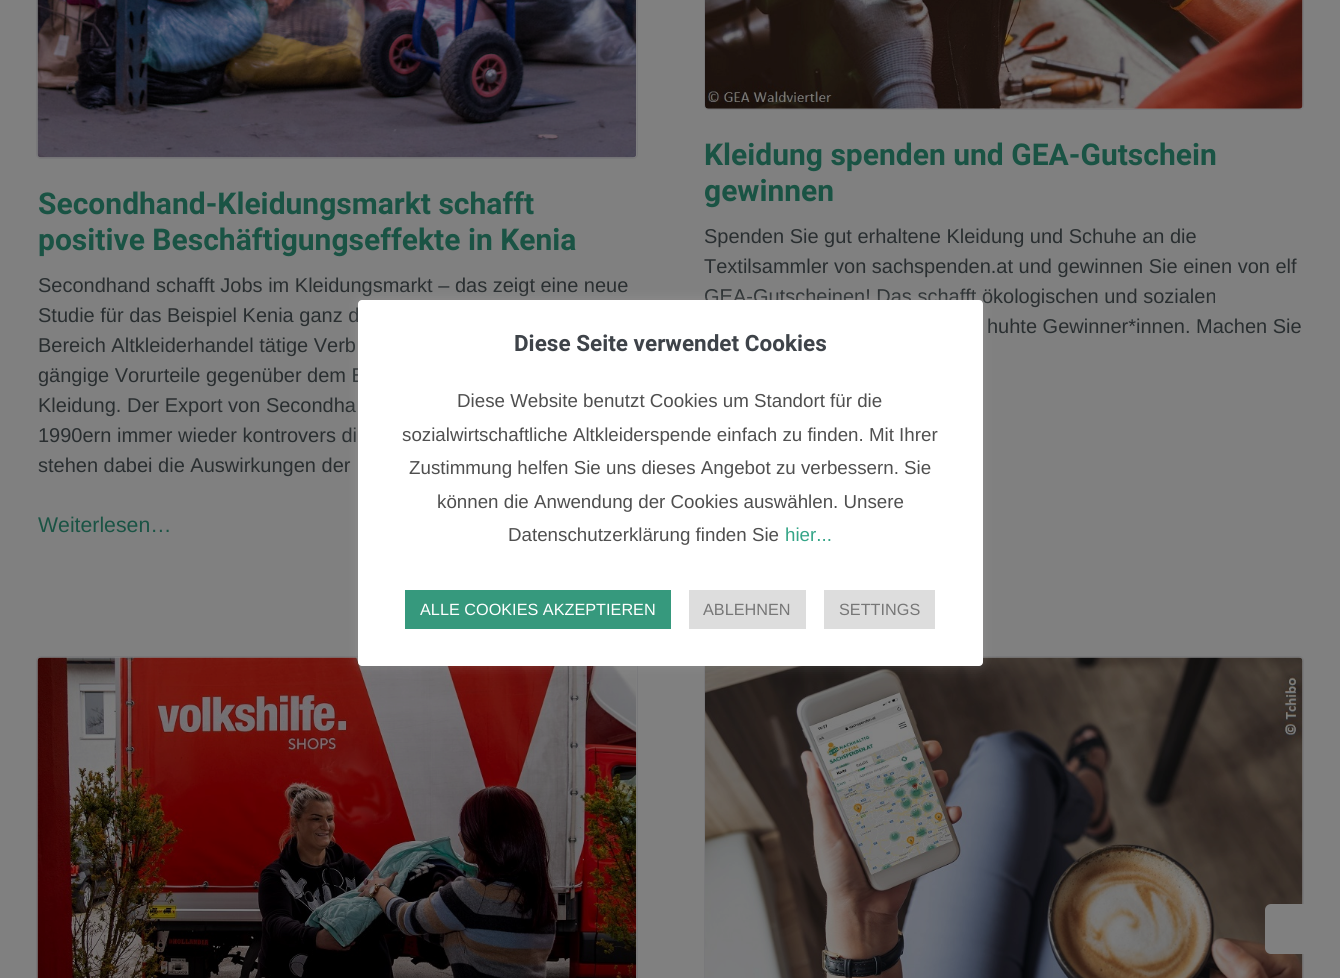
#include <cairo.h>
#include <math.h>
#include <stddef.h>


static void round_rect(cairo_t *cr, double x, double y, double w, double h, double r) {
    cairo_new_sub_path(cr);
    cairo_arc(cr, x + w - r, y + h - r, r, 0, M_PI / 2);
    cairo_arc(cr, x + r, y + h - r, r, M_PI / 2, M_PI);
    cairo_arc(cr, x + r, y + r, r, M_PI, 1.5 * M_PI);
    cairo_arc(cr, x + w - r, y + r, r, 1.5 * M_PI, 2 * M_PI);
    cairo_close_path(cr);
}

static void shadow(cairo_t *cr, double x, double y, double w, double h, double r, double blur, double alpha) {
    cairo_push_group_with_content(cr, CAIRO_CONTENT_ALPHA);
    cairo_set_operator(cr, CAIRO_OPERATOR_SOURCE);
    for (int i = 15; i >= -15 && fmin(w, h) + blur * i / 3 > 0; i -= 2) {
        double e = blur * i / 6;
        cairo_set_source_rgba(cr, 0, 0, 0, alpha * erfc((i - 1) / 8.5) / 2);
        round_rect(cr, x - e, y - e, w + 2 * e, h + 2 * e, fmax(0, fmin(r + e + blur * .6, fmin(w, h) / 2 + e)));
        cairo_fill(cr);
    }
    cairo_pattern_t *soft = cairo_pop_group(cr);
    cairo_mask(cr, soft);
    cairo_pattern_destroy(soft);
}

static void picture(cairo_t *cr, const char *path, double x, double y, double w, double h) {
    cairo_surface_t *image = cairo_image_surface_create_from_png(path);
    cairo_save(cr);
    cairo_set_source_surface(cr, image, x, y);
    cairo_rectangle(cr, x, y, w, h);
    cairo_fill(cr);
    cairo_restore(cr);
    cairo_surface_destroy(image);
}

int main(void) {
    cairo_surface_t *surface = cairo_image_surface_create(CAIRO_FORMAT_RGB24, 1340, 978);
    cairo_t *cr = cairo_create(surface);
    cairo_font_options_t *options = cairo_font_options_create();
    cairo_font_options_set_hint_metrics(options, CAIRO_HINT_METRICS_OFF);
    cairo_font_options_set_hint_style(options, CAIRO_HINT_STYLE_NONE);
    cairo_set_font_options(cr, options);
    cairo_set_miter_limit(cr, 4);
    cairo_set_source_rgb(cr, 0.502, 0.502, 0.502);
    cairo_paint(cr);
    round_rect(cr, 36.5, -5.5, 601, 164, 4.5);
    cairo_set_source_rgb(cr, 0.471, 0.471, 0.478);
    cairo_set_line_width(cr, 1);
    cairo_stroke(cr);
    picture(cr, "img1.png", 37, 0, 600, 158);
    cairo_select_font_face(cr, "Heebo", CAIRO_FONT_SLANT_NORMAL, CAIRO_FONT_WEIGHT_BOLD);
    cairo_set_font_size(cr, 30);
    cairo_set_source_rgb(cr, 0.102, 0.325, 0.267);
    cairo_move_to(cr, 38, 214);
    cairo_show_text(cr, "Secondhand-Kleidungsmarkt schafft");
    cairo_move_to(cr, 38, 250);
    cairo_show_text(cr, "positive Beschäftigungseffekte in Kenia");
    cairo_select_font_face(cr, "Liberation Sans", CAIRO_FONT_SLANT_NORMAL, CAIRO_FONT_WEIGHT_NORMAL);
    cairo_set_font_size(cr, 20);
    cairo_set_source_rgb(cr, 0.161, 0.18, 0.188);
    cairo_move_to(cr, 38, 292);
    cairo_show_text(cr, "Secondhand schafft Jobs im Kleidungsmarkt – das zeigt eine neue");
    cairo_move_to(cr, 38, 322);
    cairo_show_text(cr, "Studie für das Beispiel Kenia ganz d");
    cairo_move_to(cr, 38, 352);
    cairo_show_text(cr, "Bereich Altkleiderhandel tätige Verb");
    cairo_move_to(cr, 38, 382);
    cairo_show_text(cr, "gängige Vorurteile gegenüber dem E");
    cairo_move_to(cr, 38, 412);
    cairo_show_text(cr, "Kleidung. Der Export von Secondha");
    cairo_move_to(cr, 38, 442);
    cairo_show_text(cr, "1990ern immer wieder kontrovers di");
    cairo_move_to(cr, 38, 472);
    cairo_show_text(cr, "stehen dabei die Auswirkungen der");
    cairo_set_font_size(cr, 21.25);
    cairo_set_source_rgb(cr, 0.102, 0.325, 0.267);
    cairo_move_to(cr, 38, 532);
    cairo_show_text(cr, "Weiterlesen…");
    round_rect(cr, 704.5, -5.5, 599, 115, 4.5);
    cairo_set_source_rgb(cr, 0.471, 0.471, 0.478);
    cairo_stroke(cr);
    picture(cr, "img2.png", 705, 0, 598, 109);
    cairo_select_font_face(cr, "Heebo", CAIRO_FONT_SLANT_NORMAL, CAIRO_FONT_WEIGHT_BOLD);
    cairo_set_font_size(cr, 30);
    cairo_set_source_rgb(cr, 0.102, 0.325, 0.267);
    cairo_move_to(cr, 704, 165);
    cairo_show_text(cr, "Kleidung spenden und GEA-Gutschein");
    cairo_move_to(cr, 704, 201);
    cairo_show_text(cr, "gewinnen");
    cairo_select_font_face(cr, "Liberation Sans", CAIRO_FONT_SLANT_NORMAL, CAIRO_FONT_WEIGHT_NORMAL);
    cairo_set_font_size(cr, 20);
    cairo_set_source_rgb(cr, 0.161, 0.18, 0.188);
    cairo_move_to(cr, 704, 243);
    cairo_show_text(cr, "Spenden Sie gut erhaltene Kleidung und Schuhe an die");
    cairo_move_to(cr, 704, 273);
    cairo_show_text(cr, "Textilsammler von sachspenden.at und gewinnen Sie einen von elf");
    cairo_move_to(cr, 704, 303);
    cairo_show_text(cr, "GEA-Gutscheinen! Das schafft ökologischen und sozialen");
    cairo_move_to(cr, 987, 333);
    cairo_show_text(cr, "huhte Gewinner*innen. Machen Sie");
    round_rect(cr, 36.5, 656.5, 601, 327, 4.5);
    cairo_set_source_rgb(cr, 0.471, 0.471, 0.478);
    cairo_stroke(cr);
    picture(cr, "img3.png", 37, 657, 600, 321);
    round_rect(cr, 704.5, 656.5, 599, 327, 4.5);
    cairo_stroke(cr);
    picture(cr, "img4.png", 705, 657, 598, 321);
    cairo_set_source_rgb(cr, 0.675, 0.671, 0.671);
    shadow(cr, 358, 299, 625, 366, 4, 6, 0.3);
    cairo_set_source_rgb(cr, 1, 1, 1);
    round_rect(cr, 358, 300, 625, 366, 4);
    cairo_fill(cr);
    cairo_select_font_face(cr, "Heebo", CAIRO_FONT_SLANT_NORMAL, CAIRO_FONT_WEIGHT_BOLD);
    cairo_set_font_size(cr, 22.5);
    cairo_set_source_rgb(cr, 0.243, 0.263, 0.286);
    cairo_move_to(cr, 514, 351);
    cairo_show_text(cr, "Diese Seite verwendet Cookies");
    cairo_select_font_face(cr, "Liberation Sans", CAIRO_FONT_SLANT_NORMAL, CAIRO_FONT_WEIGHT_NORMAL);
    cairo_set_font_size(cr, 18.75);
    cairo_set_source_rgb(cr, 0.31, 0.31, 0.31);
    cairo_move_to(cr, 457, 407);
    cairo_show_text(cr, "Diese Website benutzt Cookies um Standort für die");
    cairo_move_to(cr, 402, 441);
    cairo_show_text(cr, "sozialwirtschaftliche Altkleiderspende einfach zu finden. Mit Ihrer");
    cairo_move_to(cr, 409, 474);
    cairo_show_text(cr, "Zustimmung helfen Sie uns dieses Angebot zu verbessern. Sie");
    cairo_move_to(cr, 437, 508);
    cairo_show_text(cr, "können die Anwendung der Cookies auswählen. Unsere");
    cairo_move_to(cr, 508, 541);
    cairo_show_text(cr, "Datenschutzerklärung finden Sie");
    cairo_set_source_rgb(cr, 0.204, 0.647, 0.529);
    cairo_move_to(cr, 785, 541);
    cairo_show_text(cr, "hier...");
    cairo_set_source_rgb(cr, 0.212, 0.6, 0.49);
    cairo_rectangle(cr, 405, 590, 266, 39);
    cairo_fill(cr);
    cairo_set_font_size(cr, 16.25);
    cairo_set_source_rgb(cr, 1, 1, 1);
    cairo_move_to(cr, 420, 615);
    cairo_show_text(cr, "ALLE COOKIES AKZEPTIEREN");
    cairo_set_source_rgb(cr, 0.867, 0.867, 0.867);
    cairo_rectangle(cr, 689, 590, 117, 39);
    cairo_fill(cr);
    cairo_set_source_rgb(cr, 0.467, 0.467, 0.467);
    cairo_move_to(cr, 703, 615);
    cairo_show_text(cr, "ABLEHNEN");
    cairo_set_source_rgb(cr, 0.867, 0.867, 0.867);
    cairo_rectangle(cr, 824, 590, 111, 39);
    cairo_fill(cr);
    cairo_set_source_rgb(cr, 0.467, 0.467, 0.467);
    cairo_move_to(cr, 839, 615);
    cairo_show_text(cr, "SETTINGS");
    cairo_set_source_rgb(cr, 0.502, 0.502, 0.502);
    round_rect(cr, 1265, 904, 50, 50, 6);
    cairo_fill(cr);
    cairo_surface_write_to_png(surface, "page.png");
    cairo_font_options_destroy(options);
    cairo_destroy(cr);
    cairo_surface_destroy(surface);
    return 0;
}
